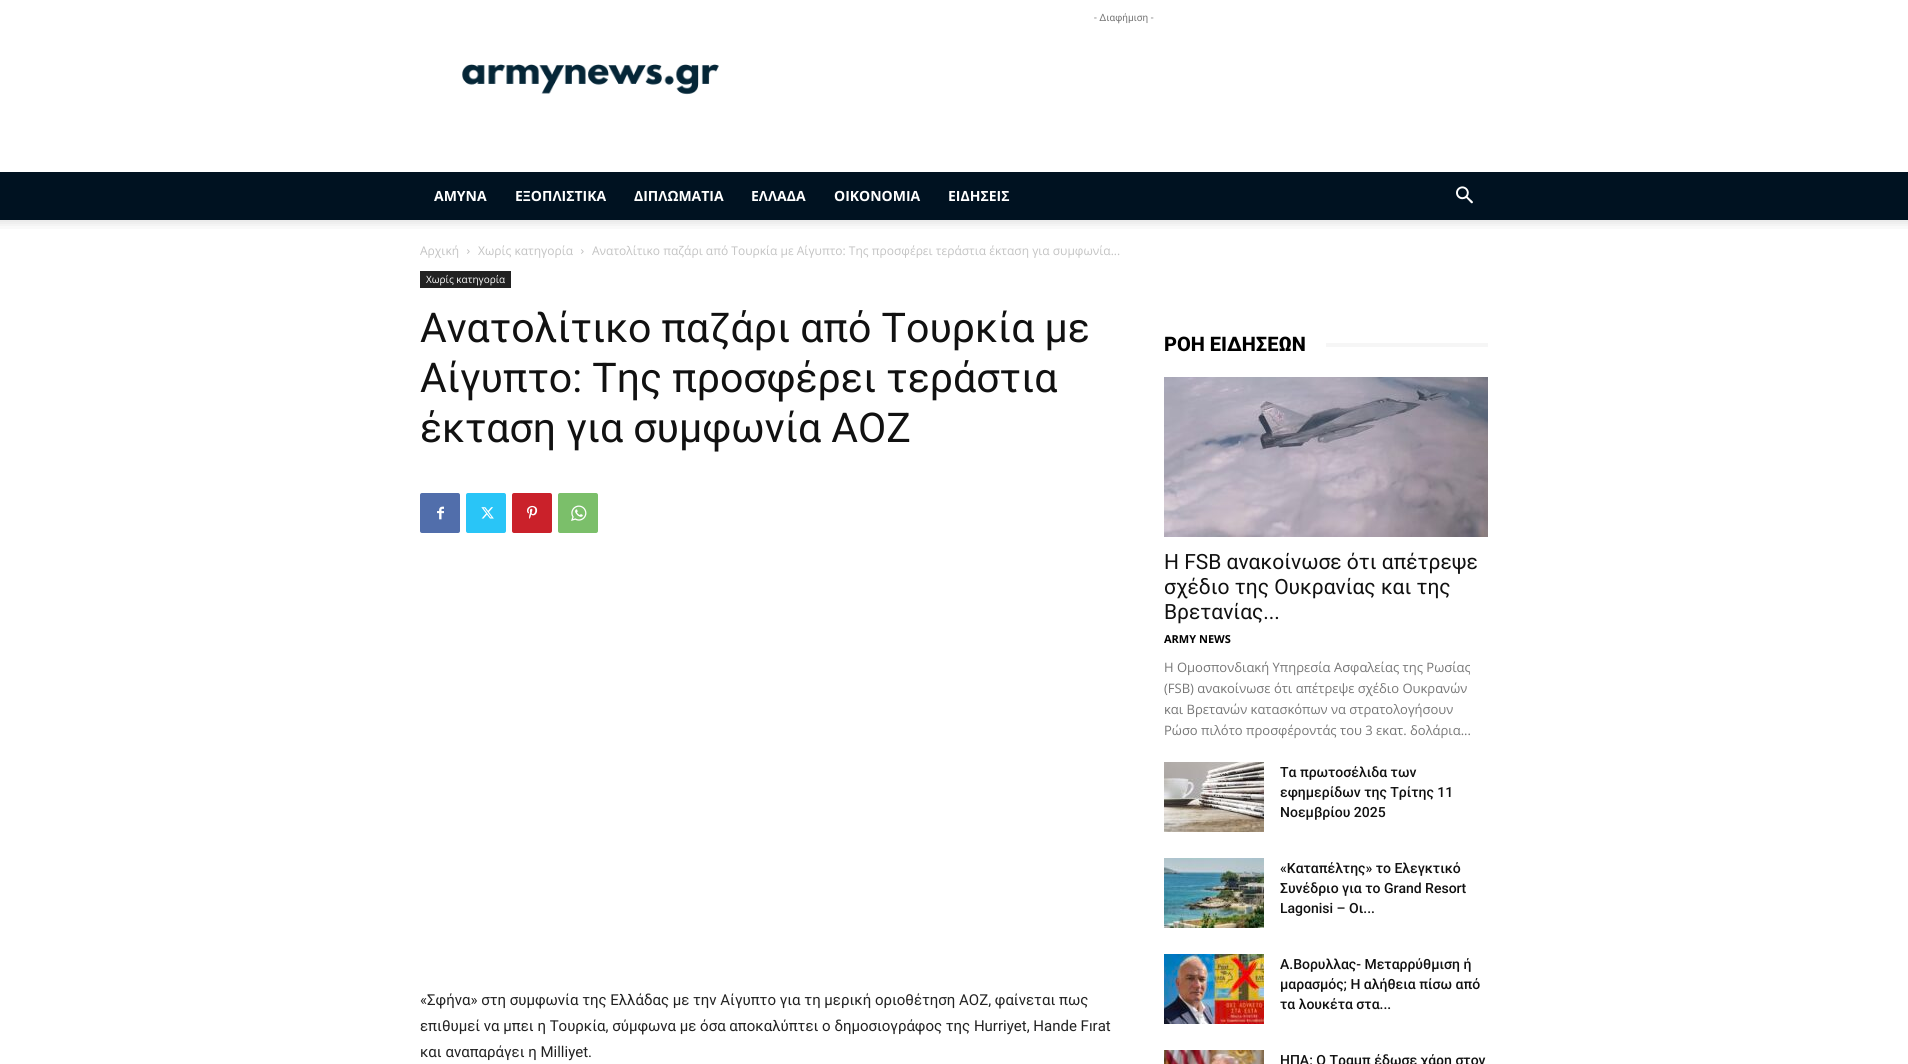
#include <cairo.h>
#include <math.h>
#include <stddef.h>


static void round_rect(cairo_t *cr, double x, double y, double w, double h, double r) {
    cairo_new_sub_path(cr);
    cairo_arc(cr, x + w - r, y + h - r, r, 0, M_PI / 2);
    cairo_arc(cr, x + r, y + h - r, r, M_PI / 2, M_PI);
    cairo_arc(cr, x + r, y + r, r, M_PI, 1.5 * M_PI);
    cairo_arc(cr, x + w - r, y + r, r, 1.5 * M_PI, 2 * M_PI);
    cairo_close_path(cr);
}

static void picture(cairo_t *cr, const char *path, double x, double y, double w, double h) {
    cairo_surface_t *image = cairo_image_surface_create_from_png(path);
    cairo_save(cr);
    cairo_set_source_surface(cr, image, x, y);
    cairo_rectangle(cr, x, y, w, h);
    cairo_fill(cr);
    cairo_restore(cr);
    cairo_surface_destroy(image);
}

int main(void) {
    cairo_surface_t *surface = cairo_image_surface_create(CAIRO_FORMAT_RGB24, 1908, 1064);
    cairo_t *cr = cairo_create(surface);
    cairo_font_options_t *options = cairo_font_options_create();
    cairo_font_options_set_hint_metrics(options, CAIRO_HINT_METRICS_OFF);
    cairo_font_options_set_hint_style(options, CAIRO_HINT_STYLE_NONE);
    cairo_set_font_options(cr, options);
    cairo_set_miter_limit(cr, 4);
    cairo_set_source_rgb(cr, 1, 1, 1);
    cairo_paint(cr);
    cairo_select_font_face(cr, "Roboto", CAIRO_FONT_SLANT_NORMAL, CAIRO_FONT_WEIGHT_NORMAL);
    cairo_set_font_size(cr, 10);
    cairo_set_source_rgb(cr, 0.463, 0.463, 0.463);
    cairo_move_to(cr, 1094, 21);
    cairo_show_text(cr, "- Διαφήμιση -");
    picture(cr, "img1.png", 462, 64, 257, 31);
    cairo_set_source_rgb(cr, 0, 0.071, 0.129);
    cairo_rectangle(cr, 0, 172, 1908, 48);
    cairo_fill(cr);
    cairo_select_font_face(cr, "Open Sans", CAIRO_FONT_SLANT_NORMAL, CAIRO_FONT_WEIGHT_BOLD);
    cairo_set_font_size(cr, 14);
    cairo_set_source_rgb(cr, 1, 1, 1);
    cairo_move_to(cr, 434, 201);
    cairo_show_text(cr, "ΑΜΥΝΑ");
    cairo_move_to(cr, 515, 201);
    cairo_show_text(cr, "ΕΞΟΠΛΙΣΤΙΚΑ");
    cairo_move_to(cr, 634, 201);
    cairo_show_text(cr, "ΔΙΠΛΩΜΑΤΙΑ");
    cairo_move_to(cr, 751, 201);
    cairo_show_text(cr, "ΕΛΛΑΔΑ");
    cairo_move_to(cr, 834, 201);
    cairo_show_text(cr, "ΟΙΚΟΝΟΜΙΑ");
    cairo_move_to(cr, 948, 201);
    cairo_show_text(cr, "ΕΙΔΗΣΕΙΣ");
    picture(cr, "img2.png", 1456, 186, 17, 18);
    picture(cr, "img3.png", 0, 220, 1908, 9);
    cairo_select_font_face(cr, "Open Sans", CAIRO_FONT_SLANT_NORMAL, CAIRO_FONT_WEIGHT_NORMAL);
    cairo_set_font_size(cr, 12);
    cairo_set_source_rgb(cr, 0.765, 0.765, 0.765);
    cairo_move_to(cr, 420, 255);
    cairo_show_text(cr, "Αρχική");
    picture(cr, "img4.png", 467, 249, 3, 5);
    cairo_move_to(cr, 478, 255);
    cairo_show_text(cr, "Χωρίς κατηγορία");
    picture(cr, "img4.png", 581, 249, 3, 5);
    cairo_move_to(cr, 592, 255);
    cairo_show_text(cr, "Ανατολίτικο παζάρι από Τουρκία με Αίγυπτο: Της προσφέρει τεράστια έκταση για συμφωνία...");
    cairo_set_source_rgb(cr, 0.133, 0.133, 0.133);
    cairo_rectangle(cr, 420, 271, 91, 17);
    cairo_fill(cr);
    cairo_set_font_size(cr, 10);
    cairo_set_source_rgb(cr, 1, 1, 1);
    cairo_move_to(cr, 426, 283);
    cairo_show_text(cr, "Χωρίς κατηγορία");
    cairo_select_font_face(cr, "Roboto", CAIRO_FONT_SLANT_NORMAL, CAIRO_FONT_WEIGHT_NORMAL);
    cairo_set_font_size(cr, 41);
    cairo_set_source_rgb(cr, 0.067, 0.067, 0.067);
    cairo_move_to(cr, 420, 342);
    cairo_show_text(cr, "Ανατολίτικο παζάρι από Τουρκία με");
    cairo_move_to(cr, 420, 392);
    cairo_show_text(cr, "Αίγυπτο: Της προσφέρει τεράστια");
    cairo_move_to(cr, 420, 442);
    cairo_show_text(cr, "έκταση για συμφωνία ΑΟΖ");
    cairo_set_source_rgb(cr, 0.318, 0.431, 0.671);
    round_rect(cr, 420, 493, 40, 40, 2);
    cairo_fill(cr);
    picture(cr, "img5.png", 437, 506, 7, 14);
    cairo_set_source_rgb(cr, 0.161, 0.773, 0.965);
    round_rect(cr, 466, 493, 40, 40, 2);
    cairo_fill(cr);
    picture(cr, "img6.png", 481, 507, 13, 12);
    cairo_set_source_rgb(cr, 0.792, 0.129, 0.165);
    round_rect(cr, 512, 493, 40, 40, 2);
    cairo_fill(cr);
    picture(cr, "img7.png", 527, 505, 11, 14);
    cairo_set_source_rgb(cr, 0.482, 0.749, 0.416);
    round_rect(cr, 558, 493, 40, 40, 2);
    cairo_fill(cr);
    picture(cr, "img8.png", 571, 505, 16, 16);
    cairo_set_font_size(cr, 15);
    cairo_set_source_rgb(cr, 0.133, 0.133, 0.133);
    cairo_move_to(cr, 420, 1005);
    cairo_show_text(cr, "«Σφήνα» στη συμφωνία της Ελλάδας με την Αίγυπτο για τη μερική οριοθέτηση ΑΟΖ, φαίνεται πως");
    cairo_move_to(cr, 420, 1031);
    cairo_show_text(cr, "επιθυμεί να μπει η Τουρκία, σύμφωνα με όσα αποκαλύπτει ο δημοσιογράφος της Hurriyet, Hande Fırat");
    cairo_move_to(cr, 420, 1057);
    cairo_show_text(cr, "και αναπαράγει η Milliyet.");
    cairo_select_font_face(cr, "Roboto ExtraBold", CAIRO_FONT_SLANT_NORMAL, CAIRO_FONT_WEIGHT_NORMAL);
    cairo_set_font_size(cr, 20);
    cairo_set_source_rgb(cr, 0, 0, 0);
    cairo_move_to(cr, 1164, 351);
    cairo_show_text(cr, "ΡΟΗ ΕΙΔΗΣΕΩΝ");
    cairo_set_source_rgb(cr, 0.961, 0.961, 0.961);
    cairo_rectangle(cr, 1326, 343, 162, 4);
    cairo_fill(cr);
    picture(cr, "img9.png", 1164, 377, 324, 160);
    cairo_select_font_face(cr, "Roboto", CAIRO_FONT_SLANT_NORMAL, CAIRO_FONT_WEIGHT_NORMAL);
    cairo_set_font_size(cr, 21);
    cairo_set_source_rgb(cr, 0.067, 0.067, 0.067);
    cairo_move_to(cr, 1164, 569);
    cairo_show_text(cr, "Η FSB ανακοίνωσε ότι απέτρεψε");
    cairo_move_to(cr, 1164, 594);
    cairo_show_text(cr, "σχέδιο της Ουκρανίας και της");
    cairo_move_to(cr, 1164, 619);
    cairo_show_text(cr, "Βρετανίας...");
    cairo_select_font_face(cr, "Open Sans", CAIRO_FONT_SLANT_NORMAL, CAIRO_FONT_WEIGHT_BOLD);
    cairo_set_font_size(cr, 11);
    cairo_set_source_rgb(cr, 0, 0, 0);
    cairo_move_to(cr, 1164, 643);
    cairo_show_text(cr, "ARMY NEWS");
    cairo_select_font_face(cr, "Open Sans", CAIRO_FONT_SLANT_NORMAL, CAIRO_FONT_WEIGHT_NORMAL);
    cairo_set_font_size(cr, 13);
    cairo_set_source_rgb(cr, 0.463, 0.463, 0.463);
    cairo_move_to(cr, 1164, 672);
    cairo_show_text(cr, "Η Ομοσπονδιακή Υπηρεσία Ασφαλείας της Ρωσίας");
    cairo_move_to(cr, 1164, 693);
    cairo_show_text(cr, "(FSB) ανακοίνωσε ότι απέτρεψε σχέδιο Ουκρανών");
    cairo_move_to(cr, 1164, 714);
    cairo_show_text(cr, "και Βρετανών κατασκόπων να στρατολογήσουν");
    cairo_move_to(cr, 1164, 735);
    cairo_show_text(cr, "Ρώσο πιλότο προσφέροντάς του 3 εκατ. δολάρια...");
    picture(cr, "img10.png", 1164, 762, 100, 70);
    cairo_select_font_face(cr, "Roboto Medium", CAIRO_FONT_SLANT_NORMAL, CAIRO_FONT_WEIGHT_NORMAL);
    cairo_set_font_size(cr, 14);
    cairo_set_source_rgb(cr, 0.067, 0.067, 0.067);
    cairo_move_to(cr, 1280, 777);
    cairo_show_text(cr, "Τα πρωτοσέλιδα των");
    cairo_move_to(cr, 1280, 797);
    cairo_show_text(cr, "εφημερίδων της Τρίτης 11");
    cairo_move_to(cr, 1280, 817);
    cairo_show_text(cr, "Νοεμβρίου 2025");
    picture(cr, "img11.png", 1164, 858, 100, 70);
    cairo_move_to(cr, 1280, 873);
    cairo_show_text(cr, "«Καταπέλτης» το Ελεγκτικό");
    cairo_move_to(cr, 1280, 893);
    cairo_show_text(cr, "Συνέδριο για το Grand Resort");
    cairo_move_to(cr, 1280, 913);
    cairo_show_text(cr, "Lagonisi – Οι...");
    picture(cr, "img12.png", 1164, 954, 100, 70);
    cairo_move_to(cr, 1280, 969);
    cairo_show_text(cr, "Α.Βορυλλας- Μεταρρύθμιση ή");
    cairo_move_to(cr, 1280, 989);
    cairo_show_text(cr, "μαρασμός; Η αλήθεια πίσω από");
    cairo_move_to(cr, 1280, 1009);
    cairo_show_text(cr, "τα λουκέτα στα...");
    picture(cr, "img13.png", 1164, 1050, 100, 14);
    cairo_move_to(cr, 1280, 1065);
    cairo_show_text(cr, "ΗΠΑ: Ο Τραμπ έδωσε χάρη στον");
    cairo_surface_write_to_png(surface, "page.png");
    cairo_font_options_destroy(options);
    cairo_destroy(cr);
    cairo_surface_destroy(surface);
    return 0;
}
